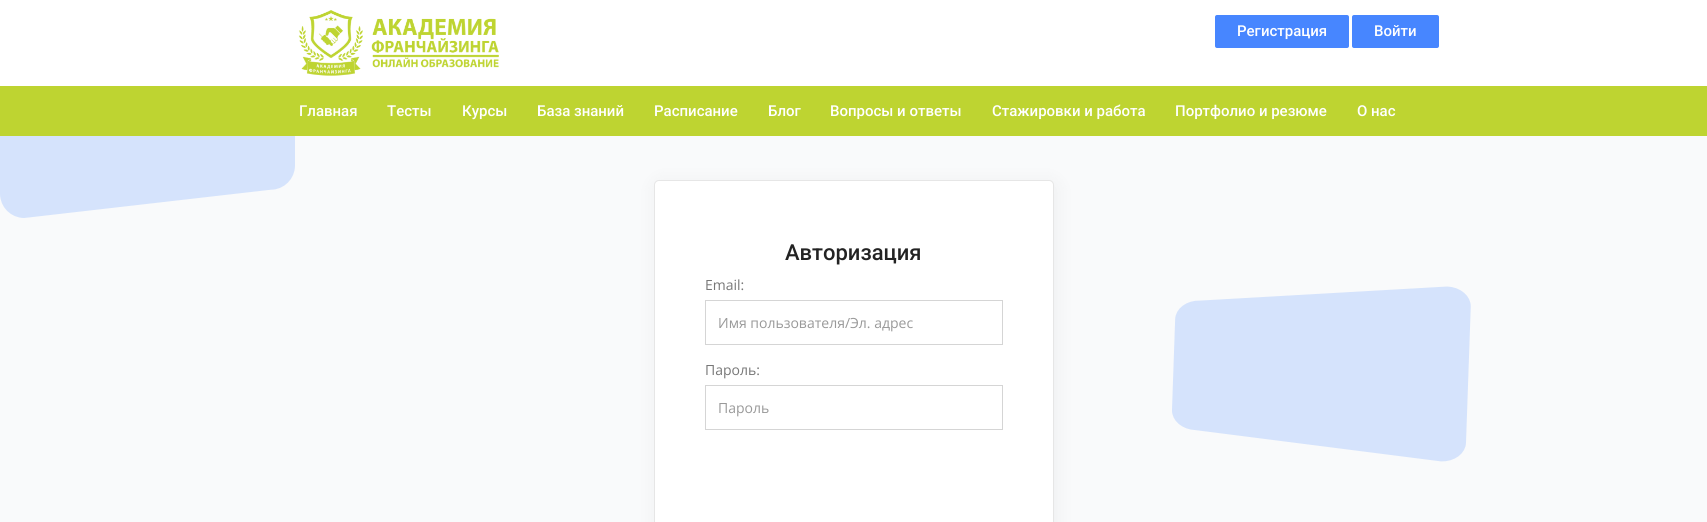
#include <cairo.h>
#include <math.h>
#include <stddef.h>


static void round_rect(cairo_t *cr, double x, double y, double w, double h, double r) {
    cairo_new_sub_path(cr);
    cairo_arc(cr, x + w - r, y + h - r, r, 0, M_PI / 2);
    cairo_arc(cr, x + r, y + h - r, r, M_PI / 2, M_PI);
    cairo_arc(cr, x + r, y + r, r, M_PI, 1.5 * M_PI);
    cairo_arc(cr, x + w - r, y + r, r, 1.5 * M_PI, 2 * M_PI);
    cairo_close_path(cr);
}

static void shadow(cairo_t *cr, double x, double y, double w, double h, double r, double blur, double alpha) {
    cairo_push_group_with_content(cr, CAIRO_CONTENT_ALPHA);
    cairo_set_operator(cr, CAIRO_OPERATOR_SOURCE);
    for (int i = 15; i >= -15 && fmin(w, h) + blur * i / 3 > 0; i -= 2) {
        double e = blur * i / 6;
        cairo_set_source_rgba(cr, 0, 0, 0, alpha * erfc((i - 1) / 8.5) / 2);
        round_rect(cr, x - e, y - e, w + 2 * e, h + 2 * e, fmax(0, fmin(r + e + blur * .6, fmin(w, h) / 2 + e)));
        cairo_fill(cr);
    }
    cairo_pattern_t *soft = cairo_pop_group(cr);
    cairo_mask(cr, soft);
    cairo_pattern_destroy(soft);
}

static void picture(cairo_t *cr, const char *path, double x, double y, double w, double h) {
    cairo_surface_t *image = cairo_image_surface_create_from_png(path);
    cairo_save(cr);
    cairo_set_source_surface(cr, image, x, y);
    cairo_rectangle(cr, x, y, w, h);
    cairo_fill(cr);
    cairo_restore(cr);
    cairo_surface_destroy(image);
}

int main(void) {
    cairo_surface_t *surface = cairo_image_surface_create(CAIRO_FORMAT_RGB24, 1707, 522);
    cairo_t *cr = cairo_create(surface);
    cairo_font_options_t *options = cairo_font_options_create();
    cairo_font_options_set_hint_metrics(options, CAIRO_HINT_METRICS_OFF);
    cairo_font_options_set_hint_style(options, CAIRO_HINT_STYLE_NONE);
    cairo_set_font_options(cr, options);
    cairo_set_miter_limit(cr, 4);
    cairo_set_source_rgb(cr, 0.973, 0.98, 0.984);
    cairo_paint(cr);
    cairo_set_source_rgb(cr, 0.745, 0.831, 0.192);
    cairo_rectangle(cr, 0, 86, 1707, 50);
    cairo_fill(cr);
    cairo_set_source_rgb(cr, 1, 1, 1);
    cairo_rectangle(cr, 0, 0, 1707, 86);
    cairo_fill(cr);
    picture(cr, "img1.png", 298, 10, 201, 66);
    cairo_set_source_rgb(cr, 0.278, 0.525, 1);
    round_rect(cr, 1215, 15, 134, 33, 2);
    cairo_fill(cr);
    cairo_select_font_face(cr, "Roboto Medium", CAIRO_FONT_SLANT_NORMAL, CAIRO_FONT_WEIGHT_NORMAL);
    cairo_set_font_size(cr, 15);
    cairo_set_source_rgb(cr, 1, 1, 1);
    cairo_move_to(cr, 1237, 36);
    cairo_show_text(cr, "Регистрация");
    cairo_set_source_rgb(cr, 0.278, 0.525, 1);
    round_rect(cr, 1352, 15, 87, 33, 2);
    cairo_fill(cr);
    cairo_set_source_rgb(cr, 1, 1, 1);
    cairo_move_to(cr, 1374, 36);
    cairo_show_text(cr, "Войти");
    cairo_move_to(cr, 299, 116);
    cairo_show_text(cr, "Главная");
    cairo_move_to(cr, 387, 116);
    cairo_show_text(cr, "Тесты");
    cairo_move_to(cr, 462, 116);
    cairo_show_text(cr, "Курсы");
    cairo_move_to(cr, 537, 116);
    cairo_show_text(cr, "База знаний");
    cairo_move_to(cr, 654, 116);
    cairo_show_text(cr, "Расписание");
    cairo_move_to(cr, 768, 116);
    cairo_show_text(cr, "Блог");
    cairo_move_to(cr, 830, 116);
    cairo_show_text(cr, "Вопросы и ответы");
    cairo_move_to(cr, 992, 116);
    cairo_show_text(cr, "Стажировки и работа");
    cairo_move_to(cr, 1175, 116);
    cairo_show_text(cr, "Портфолио и резюме");
    cairo_move_to(cr, 1357, 116);
    cairo_show_text(cr, "О нас");
    picture(cr, "img2.png", 0, 136, 1471, 326);
    cairo_set_source_rgb(cr, 0.004, 0.004, 0.004);
    shadow(cr, 656, 183, 400, 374, 5, 10, 0.05);
    cairo_set_source_rgb(cr, 1, 1, 1);
    round_rect(cr, 654.5, 180.5, 399, 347, 4.5);
    cairo_fill_preserve(cr);
    cairo_set_source_rgb(cr, 0.902, 0.902, 0.902);
    cairo_set_line_width(cr, 1);
    cairo_stroke(cr);
    cairo_set_font_size(cr, 22);
    cairo_set_source_rgb(cr, 0.137, 0.137, 0.137);
    cairo_move_to(cr, 785, 260);
    cairo_show_text(cr, "Авторизация");
    cairo_select_font_face(cr, "Open Sans", CAIRO_FONT_SLANT_NORMAL, CAIRO_FONT_WEIGHT_NORMAL);
    cairo_set_font_size(cr, 14);
    cairo_set_source_rgb(cr, 0.467, 0.467, 0.467);
    cairo_move_to(cr, 705, 290);
    cairo_show_text(cr, "Email:");
    cairo_rectangle(cr, 705.5, 300.5, 297, 44);
    cairo_set_source_rgb(cr, 0.835, 0.835, 0.835);
    cairo_stroke(cr);
    cairo_set_source_rgb(cr, 0.6, 0.6, 0.6);
    cairo_move_to(cr, 718, 328);
    cairo_show_text(cr, "Имя пользователя/Эл. адрес");
    cairo_set_source_rgb(cr, 0.467, 0.467, 0.467);
    cairo_move_to(cr, 705, 375);
    cairo_show_text(cr, "Пароль:");
    cairo_rectangle(cr, 705.5, 385.5, 297, 44);
    cairo_set_source_rgb(cr, 0.835, 0.835, 0.835);
    cairo_stroke(cr);
    cairo_set_source_rgb(cr, 0.6, 0.6, 0.6);
    cairo_move_to(cr, 718, 413);
    cairo_show_text(cr, "Пароль");
    cairo_surface_write_to_png(surface, "page.png");
    cairo_font_options_destroy(options);
    cairo_destroy(cr);
    cairo_surface_destroy(surface);
    return 0;
}
